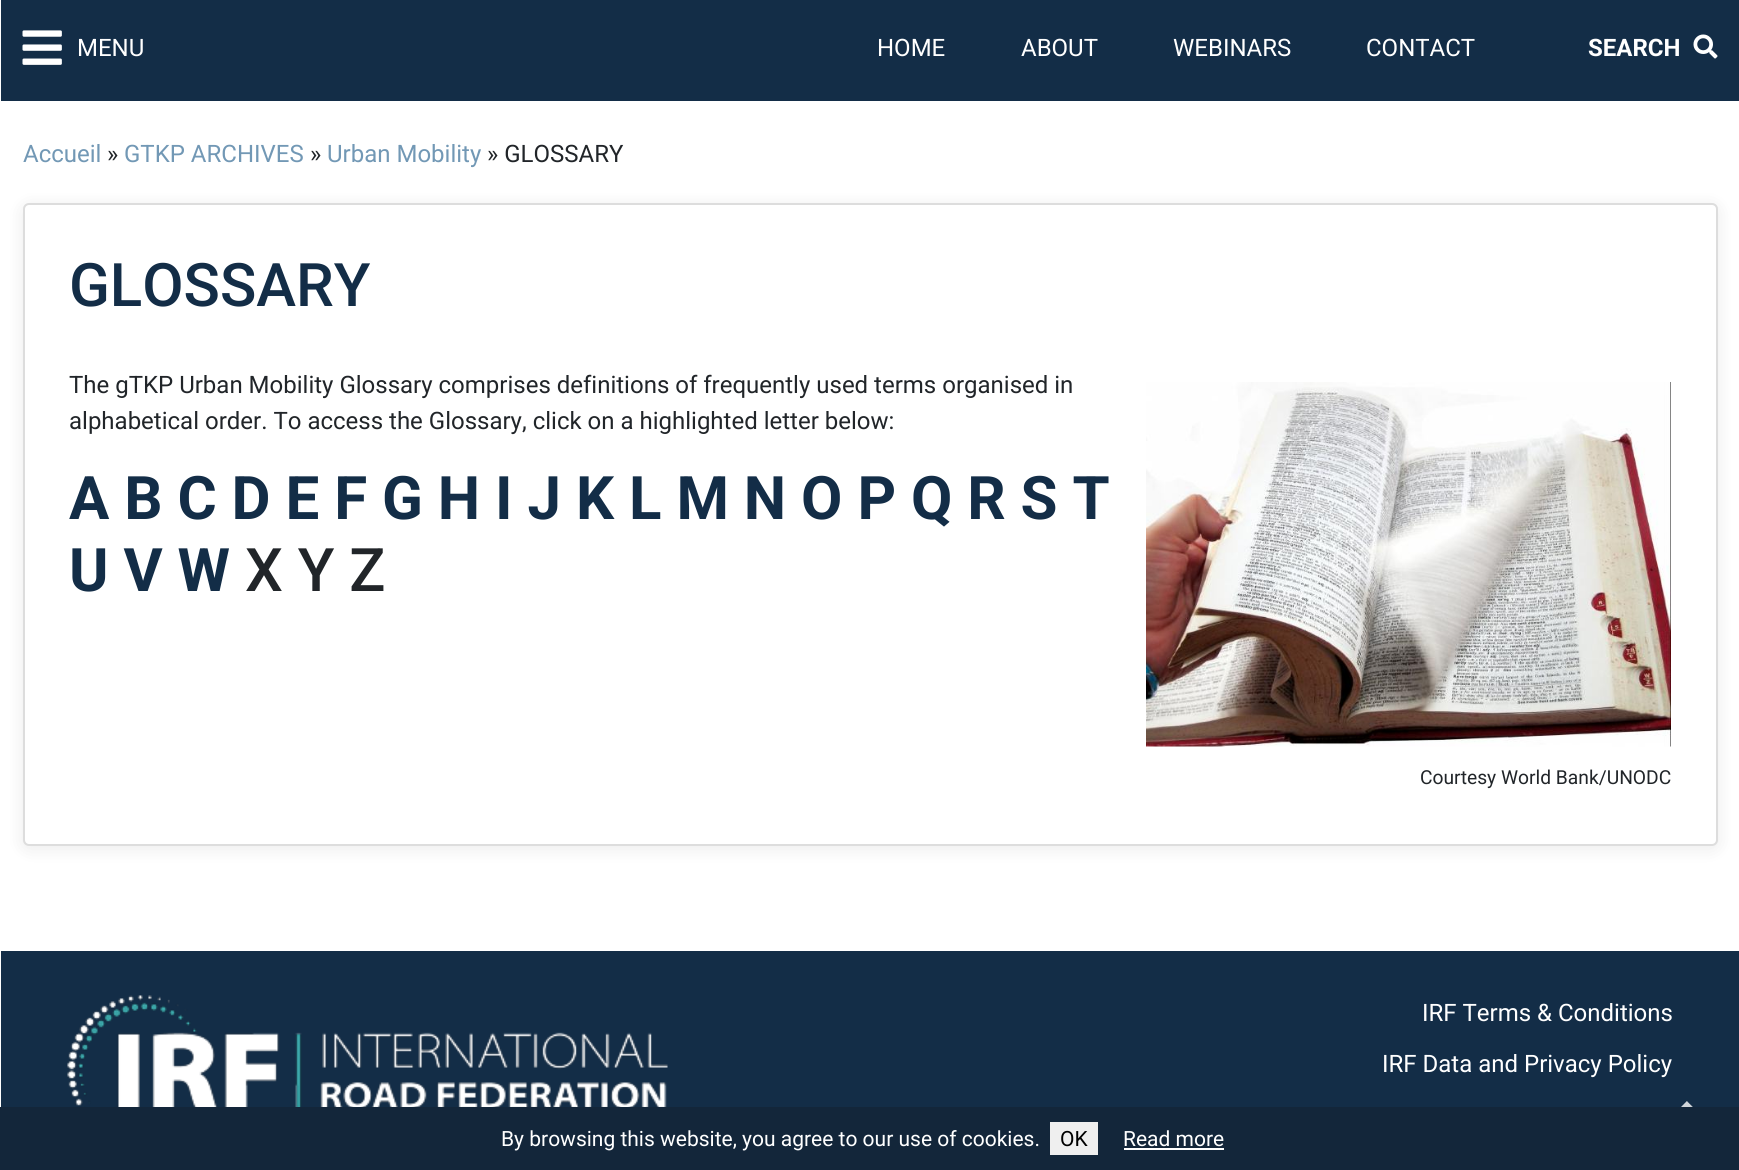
#include <cairo.h>
#include <math.h>
#include <stddef.h>


static void round_rect(cairo_t *cr, double x, double y, double w, double h, double r) {
    cairo_new_sub_path(cr);
    cairo_arc(cr, x + w - r, y + h - r, r, 0, M_PI / 2);
    cairo_arc(cr, x + r, y + h - r, r, M_PI / 2, M_PI);
    cairo_arc(cr, x + r, y + r, r, M_PI, 1.5 * M_PI);
    cairo_arc(cr, x + w - r, y + r, r, 1.5 * M_PI, 2 * M_PI);
    cairo_close_path(cr);
}

static void shadow(cairo_t *cr, double x, double y, double w, double h, double r, double blur, double alpha) {
    cairo_push_group_with_content(cr, CAIRO_CONTENT_ALPHA);
    cairo_set_operator(cr, CAIRO_OPERATOR_SOURCE);
    for (int i = 15; i >= -15 && fmin(w, h) + blur * i / 3 > 0; i -= 2) {
        double e = blur * i / 6;
        cairo_set_source_rgba(cr, 0, 0, 0, alpha * erfc((i - 1) / 8.5) / 2);
        round_rect(cr, x - e, y - e, w + 2 * e, h + 2 * e, fmax(0, fmin(r + e + blur * .6, fmin(w, h) / 2 + e)));
        cairo_fill(cr);
    }
    cairo_pattern_t *soft = cairo_pop_group(cr);
    cairo_mask(cr, soft);
    cairo_pattern_destroy(soft);
}

static void picture(cairo_t *cr, const char *path, double x, double y, double w, double h) {
    cairo_surface_t *image = cairo_image_surface_create_from_png(path);
    cairo_save(cr);
    cairo_set_source_surface(cr, image, x, y);
    cairo_rectangle(cr, x, y, w, h);
    cairo_fill(cr);
    cairo_restore(cr);
    cairo_surface_destroy(image);
}

int main(void) {
    cairo_surface_t *surface = cairo_image_surface_create(CAIRO_FORMAT_RGB24, 1739, 1170);
    cairo_t *cr = cairo_create(surface);
    cairo_font_options_t *options = cairo_font_options_create();
    cairo_font_options_set_hint_metrics(options, CAIRO_HINT_METRICS_OFF);
    cairo_font_options_set_hint_style(options, CAIRO_HINT_STYLE_NONE);
    cairo_set_font_options(cr, options);
    cairo_set_miter_limit(cr, 4);
    cairo_set_source_rgb(cr, 1, 1, 1);
    cairo_paint(cr);
    cairo_set_source_rgb(cr, 0.075, 0.176, 0.278);
    cairo_rectangle(cr, 1, 0, 1738, 101);
    cairo_fill(cr);
    picture(cr, "img1.png", 22, 30, 40, 35);
    cairo_select_font_face(cr, "Roboto", CAIRO_FONT_SLANT_NORMAL, CAIRO_FONT_WEIGHT_NORMAL);
    cairo_set_font_size(cr, 24);
    cairo_set_source_rgb(cr, 1, 1, 1);
    cairo_move_to(cr, 77, 56);
    cairo_show_text(cr, "MENU");
    cairo_move_to(cr, 877, 56);
    cairo_show_text(cr, "HOME");
    cairo_move_to(cr, 1021, 56);
    cairo_show_text(cr, "ABOUT");
    cairo_move_to(cr, 1173, 56);
    cairo_show_text(cr, "WEBINARS");
    cairo_move_to(cr, 1366, 56);
    cairo_show_text(cr, "CONTACT");
    cairo_select_font_face(cr, "Roboto", CAIRO_FONT_SLANT_NORMAL, CAIRO_FONT_WEIGHT_BOLD);
    cairo_move_to(cr, 1588, 56);
    cairo_show_text(cr, "SEARCH");
    picture(cr, "img2.png", 1693, 34, 25, 25);
    cairo_select_font_face(cr, "Roboto", CAIRO_FONT_SLANT_NORMAL, CAIRO_FONT_WEIGHT_NORMAL);
    cairo_set_source_rgb(cr, 0.447, 0.596, 0.71);
    cairo_move_to(cr, 23, 162);
    cairo_show_text(cr, "Accueil");
    cairo_set_source_rgb(cr, 0.129, 0.145, 0.161);
    cairo_move_to(cr, 107, 162);
    cairo_show_text(cr, "»");
    cairo_set_source_rgb(cr, 0.447, 0.596, 0.71);
    cairo_move_to(cr, 124, 162);
    cairo_show_text(cr, "GTKP ARCHIVES");
    cairo_set_source_rgb(cr, 0.129, 0.145, 0.161);
    cairo_move_to(cr, 310, 162);
    cairo_show_text(cr, "»");
    cairo_set_source_rgb(cr, 0.447, 0.596, 0.71);
    cairo_move_to(cr, 327, 162);
    cairo_show_text(cr, "Urban Mobility");
    cairo_set_source_rgb(cr, 0.129, 0.145, 0.161);
    cairo_move_to(cr, 487, 162);
    cairo_show_text(cr, "» GLOSSARY");
    cairo_set_source_rgb(cr, 0, 0, 0);
    shadow(cr, 23, 206, 1695, 643, 6, 9, 0.08);
    cairo_set_source_rgb(cr, 1, 1, 1);
    round_rect(cr, 24, 204, 1693, 641, 5);
    cairo_fill_preserve(cr);
    cairo_set_source_rgb(cr, 0.867, 0.867, 0.867);
    cairo_stroke(cr);
    cairo_select_font_face(cr, "Roboto Medium", CAIRO_FONT_SLANT_NORMAL, CAIRO_FONT_WEIGHT_NORMAL);
    cairo_set_font_size(cr, 60);
    cairo_set_source_rgb(cr, 0.075, 0.176, 0.278);
    cairo_move_to(cr, 69, 306);
    cairo_show_text(cr, "GLOSSARY");
    cairo_select_font_face(cr, "Roboto", CAIRO_FONT_SLANT_NORMAL, CAIRO_FONT_WEIGHT_NORMAL);
    cairo_set_font_size(cr, 24);
    cairo_set_source_rgb(cr, 0.129, 0.145, 0.161);
    cairo_move_to(cr, 69, 393);
    cairo_show_text(cr, "The gTKP Urban Mobility Glossary comprises definitions of frequently used terms organised in");
    cairo_move_to(cr, 69, 429);
    cairo_show_text(cr, "alphabetical order. To access the Glossary, click on a highlighted letter below:");
    cairo_select_font_face(cr, "Roboto", CAIRO_FONT_SLANT_NORMAL, CAIRO_FONT_WEIGHT_BOLD);
    cairo_set_font_size(cr, 60);
    cairo_set_source_rgb(cr, 0.075, 0.176, 0.278);
    cairo_move_to(cr, 69, 519);
    cairo_show_text(cr, "A B C D E F G H I J K L M N O P Q R S T");
    cairo_move_to(cr, 69, 591);
    cairo_show_text(cr, "U V W");
    cairo_select_font_face(cr, "Roboto Medium", CAIRO_FONT_SLANT_NORMAL, CAIRO_FONT_WEIGHT_NORMAL);
    cairo_set_source_rgb(cr, 0.129, 0.145, 0.161);
    cairo_move_to(cr, 245, 591);
    cairo_show_text(cr, "X Y Z");
    picture(cr, "img3.png", 1146, 382, 525, 365);
    cairo_select_font_face(cr, "Roboto", CAIRO_FONT_SLANT_NORMAL, CAIRO_FONT_WEIGHT_NORMAL);
    cairo_set_font_size(cr, 19.25);
    cairo_move_to(cr, 1420, 784);
    cairo_show_text(cr, "Courtesy World Bank/UNODC");
    cairo_set_source_rgb(cr, 0.075, 0.176, 0.278);
    cairo_rectangle(cr, 1, 951, 1738, 156);
    cairo_fill(cr);
    picture(cr, "img4.png", 67, 995, 601, 112);
    cairo_set_font_size(cr, 24);
    cairo_set_source_rgb(cr, 1, 1, 1);
    cairo_move_to(cr, 1422, 1021);
    cairo_show_text(cr, "IRF Terms & Conditions");
    cairo_move_to(cr, 1382, 1072);
    cairo_show_text(cr, "IRF Data and Privacy Policy");
    picture(cr, "img5.png", 1681, 1101, 14, 6);
    cairo_set_source_rgb(cr, 0.075, 0.149, 0.227);
    cairo_rectangle(cr, 0, 1107, 1739, 63);
    cairo_fill(cr);
    cairo_set_font_size(cr, 21);
    cairo_set_source_rgb(cr, 1, 1, 1);
    cairo_move_to(cr, 501, 1146);
    cairo_show_text(cr, "By browsing this website, you agree to our use of cookies.");
    cairo_set_source_rgb(cr, 0.937, 0.937, 0.937);
    cairo_rectangle(cr, 1050, 1122, 48, 33);
    cairo_fill(cr);
    cairo_set_source_rgb(cr, 0, 0, 0);
    cairo_move_to(cr, 1060, 1146);
    cairo_show_text(cr, "OK");
    cairo_set_source_rgb(cr, 1, 1, 1);
    cairo_move_to(cr, 1123, 1146);
    cairo_show_text(cr, "Read more");
    cairo_rectangle(cr, 1124, 1148, 100, 2);
    cairo_fill(cr);
    cairo_surface_write_to_png(surface, "page.png");
    cairo_font_options_destroy(options);
    cairo_destroy(cr);
    cairo_surface_destroy(surface);
    return 0;
}
